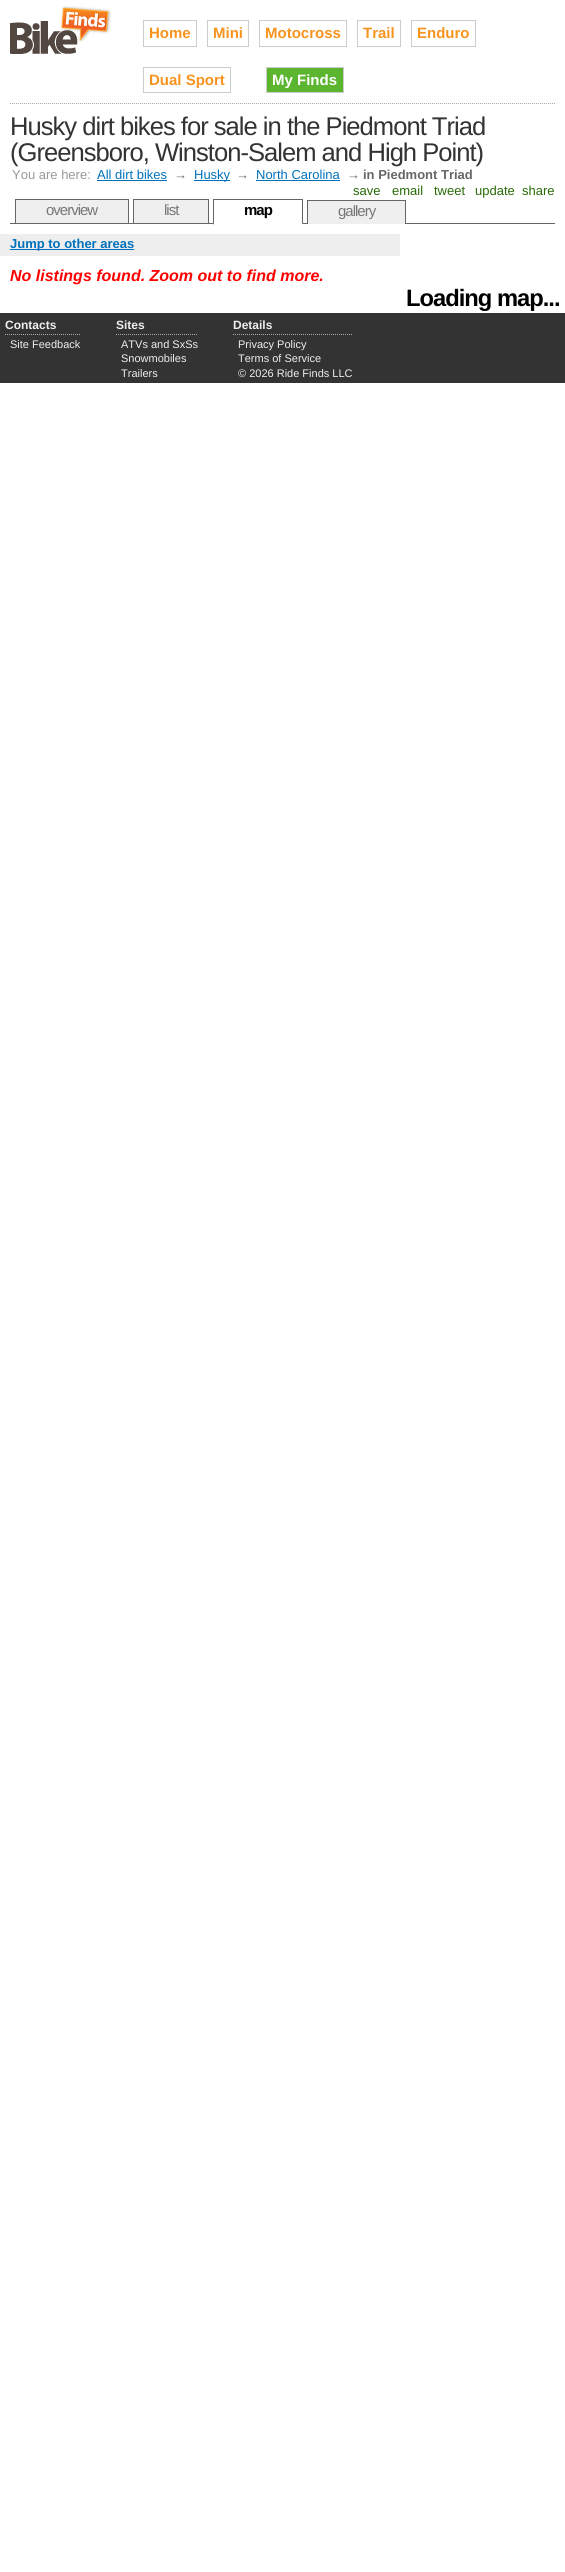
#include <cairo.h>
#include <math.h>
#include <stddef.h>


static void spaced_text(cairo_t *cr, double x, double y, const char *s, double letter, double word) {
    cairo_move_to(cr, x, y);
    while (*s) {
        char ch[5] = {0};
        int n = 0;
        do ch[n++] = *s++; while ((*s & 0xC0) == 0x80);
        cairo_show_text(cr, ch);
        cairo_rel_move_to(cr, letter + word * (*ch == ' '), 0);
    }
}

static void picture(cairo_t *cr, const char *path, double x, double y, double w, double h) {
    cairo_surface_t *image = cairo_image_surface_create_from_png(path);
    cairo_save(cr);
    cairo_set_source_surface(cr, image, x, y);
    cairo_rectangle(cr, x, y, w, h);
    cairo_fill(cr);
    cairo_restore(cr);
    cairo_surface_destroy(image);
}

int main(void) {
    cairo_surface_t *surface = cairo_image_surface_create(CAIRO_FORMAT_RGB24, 565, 2572);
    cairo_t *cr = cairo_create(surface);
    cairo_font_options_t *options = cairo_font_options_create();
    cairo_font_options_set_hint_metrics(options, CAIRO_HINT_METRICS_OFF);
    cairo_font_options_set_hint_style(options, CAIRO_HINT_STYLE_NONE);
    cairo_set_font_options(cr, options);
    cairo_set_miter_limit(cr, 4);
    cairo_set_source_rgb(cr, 1, 1, 1);
    cairo_paint(cr);
    picture(cr, "img1.png", 10, 6, 101, 48);
    cairo_rectangle(cr, 143.5, 20.5, 53, 26);
    cairo_set_source_rgb(cr, 0.8, 0.8, 0.8);
    cairo_set_line_width(cr, 1);
    cairo_stroke(cr);
    cairo_select_font_face(cr, "Liberation Sans", CAIRO_FONT_SLANT_NORMAL, CAIRO_FONT_WEIGHT_BOLD);
    cairo_set_font_size(cr, 15);
    cairo_set_source_rgb(cr, 0.969, 0.576, 0.118);
    cairo_move_to(cr, 149, 38);
    cairo_show_text(cr, "Home");
    cairo_rectangle(cr, 207.5, 20.5, 41, 26);
    cairo_set_source_rgb(cr, 0.8, 0.8, 0.8);
    cairo_stroke(cr);
    cairo_set_source_rgb(cr, 0.969, 0.576, 0.118);
    cairo_move_to(cr, 213, 38);
    cairo_show_text(cr, "Mini");
    cairo_rectangle(cr, 259.5, 20.5, 87, 26);
    cairo_set_source_rgb(cr, 0.8, 0.8, 0.8);
    cairo_stroke(cr);
    cairo_set_source_rgb(cr, 0.969, 0.576, 0.118);
    cairo_move_to(cr, 265, 38);
    cairo_show_text(cr, "Motocross");
    cairo_rectangle(cr, 357.5, 20.5, 43, 26);
    cairo_set_source_rgb(cr, 0.8, 0.8, 0.8);
    cairo_stroke(cr);
    cairo_set_source_rgb(cr, 0.969, 0.576, 0.118);
    cairo_move_to(cr, 363, 38);
    cairo_show_text(cr, "Trail");
    cairo_rectangle(cr, 411.5, 20.5, 64, 26);
    cairo_set_source_rgb(cr, 0.8, 0.8, 0.8);
    cairo_stroke(cr);
    cairo_set_source_rgb(cr, 0.969, 0.576, 0.118);
    cairo_move_to(cr, 417, 38);
    cairo_show_text(cr, "Enduro");
    cairo_rectangle(cr, 143.5, 67.5, 87, 25);
    cairo_set_source_rgb(cr, 0.8, 0.8, 0.8);
    cairo_stroke(cr);
    cairo_set_source_rgb(cr, 0.969, 0.576, 0.118);
    cairo_move_to(cr, 149, 85);
    cairo_show_text(cr, "Dual Sport");
    cairo_set_source_rgb(cr, 0.361, 0.71, 0.184);
    cairo_rectangle(cr, 266.5, 67.5, 77, 25);
    cairo_fill_preserve(cr);
    cairo_set_source_rgb(cr, 0.8, 0.8, 0.8);
    cairo_stroke(cr);
    cairo_set_source_rgb(cr, 1, 1, 1);
    cairo_move_to(cr, 272, 85);
    cairo_show_text(cr, "My Finds");
    cairo_new_path(cr);
    cairo_move_to(cr, 10, 103.5);
    cairo_line_to(cr, 555, 103.5);
    cairo_set_source_rgb(cr, 0.667, 0.667, 0.667);
    cairo_set_dash(cr, (double[]){1, 1}, 2, 0);
    cairo_stroke(cr);
    cairo_select_font_face(cr, "Liberation Sans", CAIRO_FONT_SLANT_NORMAL, CAIRO_FONT_WEIGHT_NORMAL);
    cairo_set_font_size(cr, 25.6);
    cairo_set_source_rgb(cr, 0.2, 0.2, 0.2);
    spaced_text(cr, 10, 135, "Husky dirt bikes for sale in the Piedmont Triad", -1, 0);
    spaced_text(cr, 10, 161, "(Greensboro, Winston-Salem and High Point)", -1, 0);
    cairo_set_font_size(cr, 13);
    cairo_set_source_rgb(cr, 0.6, 0.6, 0.6);
    cairo_move_to(cr, 12, 179);
    cairo_show_text(cr, "You are here:");
    cairo_set_source_rgb(cr, 0, 0.443, 0.737);
    cairo_move_to(cr, 97, 179);
    cairo_show_text(cr, "All dirt bikes");
    cairo_rectangle(cr, 97, 180, 70, 1);
    cairo_fill(cr);
    cairo_set_source_rgb(cr, 0.4, 0.4, 0.4);
    cairo_move_to(cr, 174, 179);
    cairo_show_text(cr, "→");
    cairo_set_source_rgb(cr, 0, 0.443, 0.737);
    cairo_rectangle(cr, 194, 180, 36, 1);
    cairo_fill(cr);
    cairo_move_to(cr, 194, 179);
    cairo_show_text(cr, "Husky");
    cairo_set_source_rgb(cr, 0.4, 0.4, 0.4);
    cairo_move_to(cr, 236, 179);
    cairo_show_text(cr, "→");
    cairo_set_source_rgb(cr, 0, 0.443, 0.737);
    cairo_move_to(cr, 256, 179);
    cairo_show_text(cr, "North Carolina");
    cairo_rectangle(cr, 256, 180, 84, 1);
    cairo_fill(cr);
    cairo_set_source_rgb(cr, 0.4, 0.4, 0.4);
    cairo_move_to(cr, 347, 179);
    cairo_show_text(cr, "→");
    cairo_select_font_face(cr, "Liberation Sans", CAIRO_FONT_SLANT_NORMAL, CAIRO_FONT_WEIGHT_BOLD);
    cairo_move_to(cr, 363, 179);
    cairo_show_text(cr, "in Piedmont Triad");
    cairo_select_font_face(cr, "Liberation Sans", CAIRO_FONT_SLANT_NORMAL, CAIRO_FONT_WEIGHT_NORMAL);
    cairo_set_source_rgb(cr, 0.157, 0.42, 0.027);
    cairo_move_to(cr, 353, 195);
    cairo_show_text(cr, "save");
    cairo_move_to(cr, 392, 195);
    cairo_show_text(cr, "email");
    cairo_move_to(cr, 434, 195);
    cairo_show_text(cr, "tweet");
    cairo_move_to(cr, 475, 195);
    cairo_show_text(cr, "update");
    cairo_move_to(cr, 522, 195);
    cairo_show_text(cr, "share");
    cairo_set_source_rgb(cr, 0.4, 0.4, 0.4);
    cairo_rectangle(cr, 10, 223, 545, 1);
    cairo_fill(cr);
    cairo_set_source_rgb(cr, 0.937, 0.937, 0.937);
    cairo_rectangle(cr, 16, 200, 112, 23);
    cairo_fill(cr);
    cairo_set_source_rgb(cr, 0.4, 0.4, 0.4);
    cairo_rectangle(cr, 15, 199, 114, 1);
    cairo_fill(cr);
    cairo_rectangle(cr, 128, 199, 1, 24);
    cairo_fill(cr);
    cairo_rectangle(cr, 15, 199, 1, 24);
    cairo_fill(cr);
    cairo_set_font_size(cr, 15);
    cairo_set_source_rgb(cr, 0.467, 0.467, 0.467);
    spaced_text(cr, 46, 215, "overview", -1, 0);
    cairo_set_source_rgb(cr, 0.937, 0.937, 0.937);
    cairo_rectangle(cr, 134, 200, 74, 23);
    cairo_fill(cr);
    cairo_set_source_rgb(cr, 0.4, 0.4, 0.4);
    cairo_rectangle(cr, 133, 199, 76, 1);
    cairo_fill(cr);
    cairo_rectangle(cr, 208, 199, 1, 24);
    cairo_fill(cr);
    cairo_rectangle(cr, 133, 199, 1, 24);
    cairo_fill(cr);
    cairo_set_source_rgb(cr, 0.467, 0.467, 0.467);
    spaced_text(cr, 164, 215, "list", -1, 0);
    cairo_set_source_rgb(cr, 0.4, 0.4, 0.4);
    cairo_rectangle(cr, 213, 199, 90, 1);
    cairo_fill(cr);
    cairo_new_path(cr);
    cairo_move_to(cr, 303, 199);
    cairo_line_to(cr, 303, 225);
    cairo_line_to(cr, 302, 223);
    cairo_line_to(cr, 302, 200);
    cairo_close_path(cr);
    cairo_fill(cr);
    cairo_set_source_rgb(cr, 1, 1, 1);
    cairo_new_path(cr);
    cairo_move_to(cr, 303, 225);
    cairo_line_to(cr, 213, 225);
    cairo_line_to(cr, 214, 223);
    cairo_line_to(cr, 302, 223);
    cairo_close_path(cr);
    cairo_fill(cr);
    cairo_set_source_rgb(cr, 0.4, 0.4, 0.4);
    cairo_new_path(cr);
    cairo_move_to(cr, 213, 225);
    cairo_line_to(cr, 213, 199);
    cairo_line_to(cr, 214, 200);
    cairo_line_to(cr, 214, 223);
    cairo_close_path(cr);
    cairo_fill(cr);
    cairo_select_font_face(cr, "Liberation Sans", CAIRO_FONT_SLANT_NORMAL, CAIRO_FONT_WEIGHT_BOLD);
    cairo_set_source_rgb(cr, 0, 0, 0);
    spaced_text(cr, 244, 215, "map", -1, 0);
    cairo_set_source_rgb(cr, 0.937, 0.937, 0.937);
    cairo_rectangle(cr, 308, 201, 97, 23);
    cairo_fill(cr);
    cairo_set_source_rgb(cr, 0.4, 0.4, 0.4);
    cairo_rectangle(cr, 307, 200, 99, 1);
    cairo_fill(cr);
    cairo_rectangle(cr, 405, 200, 1, 24);
    cairo_fill(cr);
    cairo_rectangle(cr, 307, 200, 1, 24);
    cairo_fill(cr);
    cairo_select_font_face(cr, "Liberation Sans", CAIRO_FONT_SLANT_NORMAL, CAIRO_FONT_WEIGHT_NORMAL);
    cairo_set_source_rgb(cr, 0.467, 0.467, 0.467);
    spaced_text(cr, 338, 216, "gallery", -1, 0);
    cairo_set_source_rgb(cr, 0.933, 0.933, 0.933);
    cairo_rectangle(cr, 0, 234, 400, 22);
    cairo_fill(cr);
    cairo_set_source_rgb(cr, 0, 0.443, 0.737);
    cairo_rectangle(cr, 10, 249, 124, 1);
    cairo_fill(cr);
    cairo_select_font_face(cr, "Liberation Sans", CAIRO_FONT_SLANT_NORMAL, CAIRO_FONT_WEIGHT_BOLD);
    cairo_set_font_size(cr, 13);
    cairo_move_to(cr, 10, 248);
    cairo_show_text(cr, "Jump to other areas");
    cairo_select_font_face(cr, "Liberation Sans", CAIRO_FONT_SLANT_ITALIC, CAIRO_FONT_WEIGHT_BOLD);
    cairo_set_font_size(cr, 16);
    cairo_set_source_rgb(cr, 1, 0, 0);
    cairo_move_to(cr, 10, 281);
    cairo_show_text(cr, "No listings found. Zoom out to find more.");
    cairo_select_font_face(cr, "Liberation Sans", CAIRO_FONT_SLANT_NORMAL, CAIRO_FONT_WEIGHT_BOLD);
    cairo_set_font_size(cr, 23.75);
    cairo_set_source_rgb(cr, 0, 0, 0);
    spaced_text(cr, 406, 306, "Loading map...", -1, 0);
    cairo_set_source_rgb(cr, 0.2, 0.2, 0.2);
    cairo_rectangle(cr, 0, 313, 565, 70);
    cairo_fill(cr);
    cairo_new_path(cr);
    cairo_move_to(cr, 5, 334.5);
    cairo_line_to(cr, 81, 334.5);
    cairo_set_source_rgb(cr, 0.667, 0.667, 0.667);
    cairo_stroke(cr);
    cairo_set_font_size(cr, 12);
    cairo_set_source_rgb(cr, 0.933, 0.933, 0.933);
    cairo_move_to(cr, 5, 329);
    cairo_show_text(cr, "Contacts");
    cairo_select_font_face(cr, "Liberation Sans", CAIRO_FONT_SLANT_NORMAL, CAIRO_FONT_WEIGHT_NORMAL);
    cairo_set_font_size(cr, 11);
    cairo_move_to(cr, 10, 348);
    cairo_show_text(cr, "Site Feedback");
    cairo_new_path(cr);
    cairo_move_to(cr, 116, 334.5);
    cairo_line_to(cr, 198, 334.5);
    cairo_set_source_rgb(cr, 0.667, 0.667, 0.667);
    cairo_stroke(cr);
    cairo_select_font_face(cr, "Liberation Sans", CAIRO_FONT_SLANT_NORMAL, CAIRO_FONT_WEIGHT_BOLD);
    cairo_set_font_size(cr, 12);
    cairo_set_source_rgb(cr, 0.933, 0.933, 0.933);
    cairo_move_to(cr, 116, 329);
    cairo_show_text(cr, "Sites");
    cairo_select_font_face(cr, "Liberation Sans", CAIRO_FONT_SLANT_NORMAL, CAIRO_FONT_WEIGHT_NORMAL);
    cairo_set_font_size(cr, 11);
    cairo_move_to(cr, 121, 348);
    cairo_show_text(cr, "ATVs and SxSs");
    cairo_move_to(cr, 121, 362);
    cairo_show_text(cr, "Snowmobiles");
    cairo_move_to(cr, 121, 377);
    cairo_show_text(cr, "Trailers");
    cairo_new_path(cr);
    cairo_move_to(cr, 233, 334.5);
    cairo_line_to(cr, 353, 334.5);
    cairo_set_source_rgb(cr, 0.667, 0.667, 0.667);
    cairo_stroke(cr);
    cairo_select_font_face(cr, "Liberation Sans", CAIRO_FONT_SLANT_NORMAL, CAIRO_FONT_WEIGHT_BOLD);
    cairo_set_font_size(cr, 12);
    cairo_set_source_rgb(cr, 0.933, 0.933, 0.933);
    cairo_move_to(cr, 233, 329);
    cairo_show_text(cr, "Details");
    cairo_select_font_face(cr, "Liberation Sans", CAIRO_FONT_SLANT_NORMAL, CAIRO_FONT_WEIGHT_NORMAL);
    cairo_set_font_size(cr, 11);
    cairo_move_to(cr, 238, 348);
    cairo_show_text(cr, "Privacy Policy");
    cairo_move_to(cr, 238, 362);
    cairo_show_text(cr, "Terms of Service");
    cairo_move_to(cr, 238, 377);
    cairo_show_text(cr, "© 2026 Ride Finds LLC");
    cairo_surface_write_to_png(surface, "page.png");
    cairo_font_options_destroy(options);
    cairo_destroy(cr);
    cairo_surface_destroy(surface);
    return 0;
}
